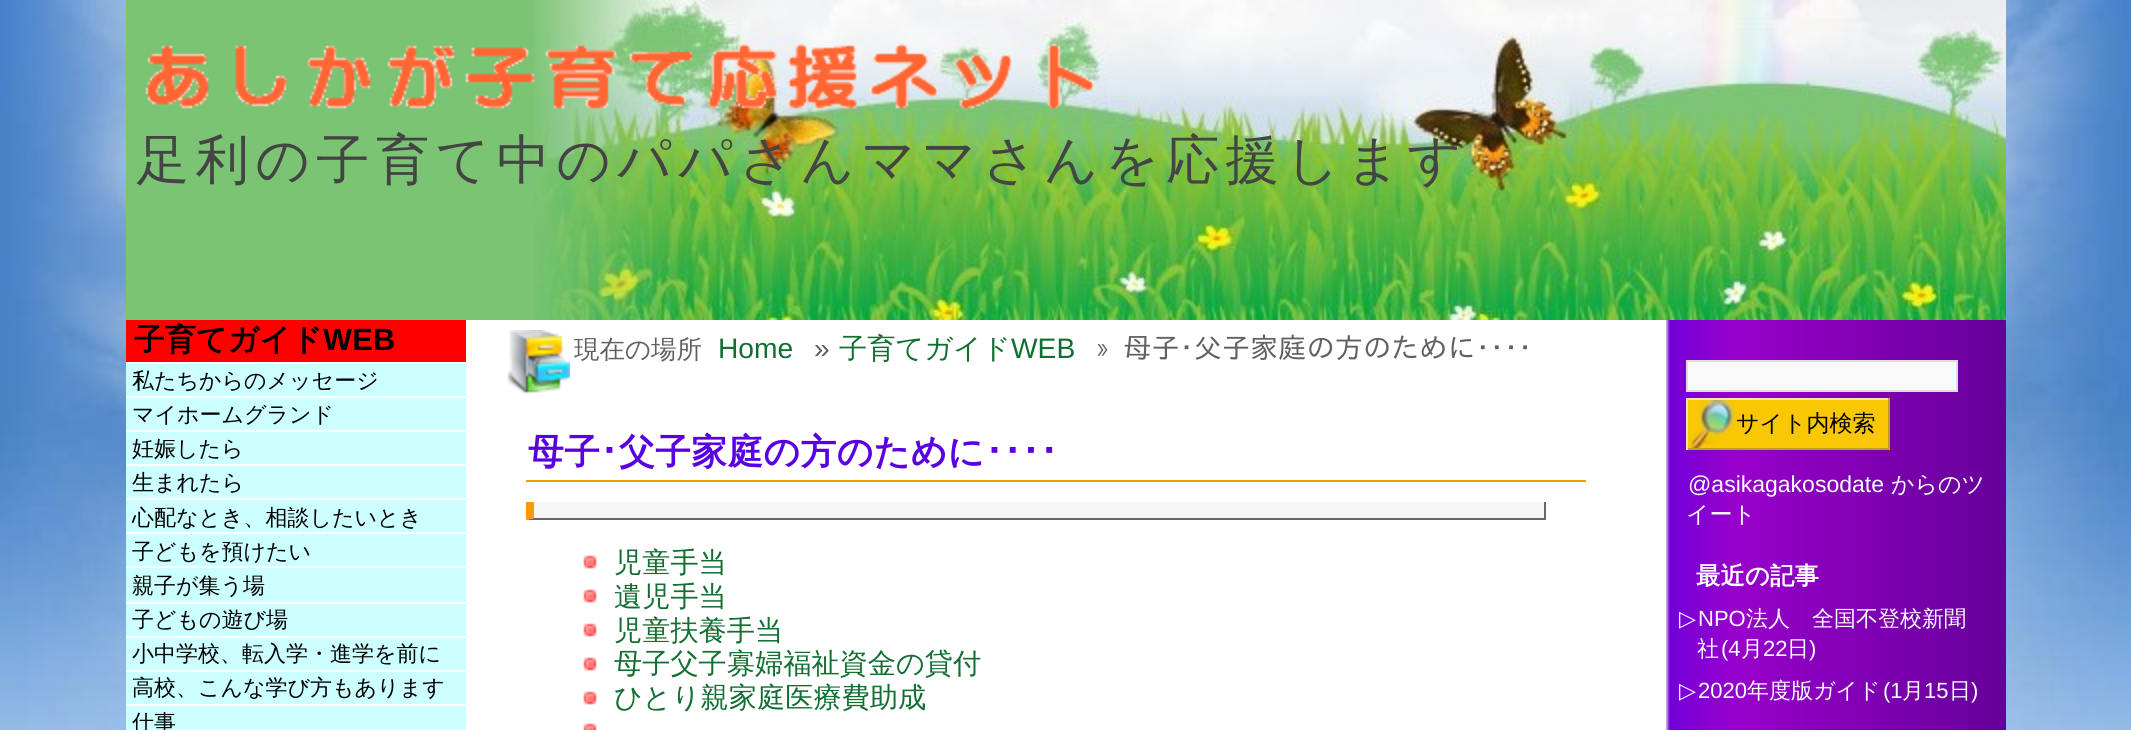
#include <cairo.h>
#include <math.h>
#include <stddef.h>


static void spaced_text(cairo_t *cr, double x, double y, const char *s, double letter, double word) {
    cairo_move_to(cr, x, y);
    while (*s) {
        char ch[5] = {0};
        int n = 0;
        do ch[n++] = *s++; while ((*s & 0xC0) == 0x80);
        cairo_show_text(cr, ch);
        cairo_rel_move_to(cr, letter + word * (*ch == ' '), 0);
    }
}

static void picture(cairo_t *cr, const char *path, double x, double y, double w, double h) {
    cairo_surface_t *image = cairo_image_surface_create_from_png(path);
    cairo_save(cr);
    cairo_set_source_surface(cr, image, x, y);
    cairo_rectangle(cr, x, y, w, h);
    cairo_fill(cr);
    cairo_restore(cr);
    cairo_surface_destroy(image);
}

int main(void) {
    cairo_surface_t *surface = cairo_image_surface_create(CAIRO_FORMAT_RGB24, 2131, 730);
    cairo_t *cr = cairo_create(surface);
    cairo_font_options_t *options = cairo_font_options_create();
    cairo_font_options_set_hint_metrics(options, CAIRO_HINT_METRICS_OFF);
    cairo_font_options_set_hint_style(options, CAIRO_HINT_STYLE_NONE);
    cairo_set_font_options(cr, options);
    cairo_set_miter_limit(cr, 4);
    cairo_set_source_rgb(cr, 1, 1, 1);
    cairo_paint(cr);
    picture(cr, "img1.png", 0, 0, 126, 730);
    picture(cr, "img2.png", 2006, 0, 125, 730);
    cairo_set_source_rgb(cr, 0.482, 0.769, 0.451);
    cairo_rectangle(cr, 126, 0, 408, 320);
    cairo_fill(cr);
    picture(cr, "img3.png", 534, 0, 1472, 320);
    picture(cr, "img4.png", 145, 43, 950, 66);
    cairo_select_font_face(cr, "WenQuanYi Zen Hei Medium", CAIRO_FONT_SLANT_NORMAL, CAIRO_FONT_WEIGHT_NORMAL);
    cairo_set_font_size(cr, 53.3);
    cairo_set_source_rgb(cr, 0.267, 0.267, 0.267);
    spaced_text(cr, 136, 178, "足利の子育て中のパパさんママさんを応援します", 6.4, 0);
    cairo_set_source_rgb(cr, 1, 0, 0);
    cairo_rectangle(cr, 126, 320, 340, 42);
    cairo_fill(cr);
    cairo_select_font_face(cr, "WenQuanYi Zen Hei", CAIRO_FONT_SLANT_NORMAL, CAIRO_FONT_WEIGHT_BOLD);
    cairo_set_font_size(cr, 30.75);
    cairo_set_source_rgb(cr, 0, 0, 0);
    spaced_text(cr, 134, 350, "子育てガイド", 0.25, 0);
    cairo_select_font_face(cr, "Liberation Sans", CAIRO_FONT_SLANT_NORMAL, CAIRO_FONT_WEIGHT_BOLD);
    spaced_text(cr, 323, 350, "WEB", 0.25, 0);
    cairo_set_source_rgb(cr, 0.8, 1, 1);
    cairo_rectangle(cr, 126, 364, 340, 32);
    cairo_fill(cr);
    cairo_select_font_face(cr, "WenQuanYi Zen Hei Medium", CAIRO_FONT_SLANT_NORMAL, CAIRO_FONT_WEIGHT_NORMAL);
    cairo_set_font_size(cr, 22);
    cairo_set_source_rgb(cr, 0, 0, 0);
    cairo_move_to(cr, 132, 388);
    cairo_show_text(cr, "私たちからのメッセージ");
    cairo_set_source_rgb(cr, 0.8, 1, 1);
    cairo_rectangle(cr, 126, 398, 340, 32);
    cairo_fill(cr);
    cairo_set_source_rgb(cr, 0, 0, 0);
    cairo_move_to(cr, 132, 422);
    cairo_show_text(cr, "マイホームグランド");
    cairo_set_source_rgb(cr, 0.8, 1, 1);
    cairo_rectangle(cr, 126, 432, 340, 32);
    cairo_fill(cr);
    cairo_set_source_rgb(cr, 0, 0, 0);
    cairo_move_to(cr, 132, 456);
    cairo_show_text(cr, "妊娠したら");
    cairo_set_source_rgb(cr, 0.8, 1, 1);
    cairo_rectangle(cr, 126, 466, 340, 32);
    cairo_fill(cr);
    cairo_set_source_rgb(cr, 0, 0, 0);
    cairo_move_to(cr, 132, 490);
    cairo_show_text(cr, "生まれたら");
    cairo_set_source_rgb(cr, 0.8, 1, 1);
    cairo_rectangle(cr, 126, 500, 340, 32);
    cairo_fill(cr);
    cairo_set_source_rgb(cr, 0, 0, 0);
    cairo_move_to(cr, 132, 525);
    cairo_show_text(cr, "心配なとき、相談したいとき");
    cairo_set_source_rgb(cr, 0.8, 1, 1);
    cairo_rectangle(cr, 126, 534, 340, 32);
    cairo_fill(cr);
    cairo_set_source_rgb(cr, 0, 0, 0);
    cairo_move_to(cr, 132, 559);
    cairo_show_text(cr, "子どもを預けたい");
    cairo_set_source_rgb(cr, 0.8, 1, 1);
    cairo_rectangle(cr, 126, 568, 340, 34);
    cairo_fill(cr);
    cairo_set_source_rgb(cr, 0, 0, 0);
    cairo_move_to(cr, 132, 593);
    cairo_show_text(cr, "親子が集う場");
    cairo_set_source_rgb(cr, 0.8, 1, 1);
    cairo_rectangle(cr, 126, 604, 340, 32);
    cairo_fill(cr);
    cairo_set_source_rgb(cr, 0, 0, 0);
    cairo_move_to(cr, 132, 627);
    cairo_show_text(cr, "子どもの遊び場");
    cairo_set_source_rgb(cr, 0.8, 1, 1);
    cairo_rectangle(cr, 126, 638, 340, 32);
    cairo_fill(cr);
    cairo_set_source_rgb(cr, 0, 0, 0);
    cairo_move_to(cr, 132, 661);
    cairo_show_text(cr, "小中学校、転入学・進学を前に");
    cairo_set_source_rgb(cr, 0.8, 1, 1);
    cairo_rectangle(cr, 126, 672, 340, 32);
    cairo_fill(cr);
    cairo_set_source_rgb(cr, 0, 0, 0);
    cairo_move_to(cr, 132, 695);
    cairo_show_text(cr, "高校、こんな学び方もあります");
    cairo_set_source_rgb(cr, 0.8, 1, 1);
    cairo_rectangle(cr, 126, 706, 340, 24);
    cairo_fill(cr);
    cairo_set_source_rgb(cr, 0, 0, 0);
    cairo_move_to(cr, 132, 730);
    cairo_show_text(cr, "仕事");
    picture(cr, "img5.png", 507, 330, 63, 64);
    cairo_set_font_size(cr, 25.5);
    cairo_set_source_rgb(cr, 0.376, 0.376, 0.376);
    cairo_move_to(cr, 574, 358);
    cairo_show_text(cr, "現在の場所");
    cairo_select_font_face(cr, "Liberation Sans", CAIRO_FONT_SLANT_NORMAL, CAIRO_FONT_WEIGHT_NORMAL);
    cairo_set_font_size(cr, 28.2);
    cairo_set_source_rgb(cr, 0.071, 0.431, 0.192);
    cairo_move_to(cr, 718, 358);
    cairo_show_text(cr, "Home");
    cairo_set_source_rgb(cr, 0.376, 0.376, 0.376);
    cairo_move_to(cr, 814, 358);
    cairo_show_text(cr, "»");
    cairo_select_font_face(cr, "WenQuanYi Zen Hei Medium", CAIRO_FONT_SLANT_NORMAL, CAIRO_FONT_WEIGHT_NORMAL);
    cairo_set_source_rgb(cr, 0.071, 0.431, 0.192);
    cairo_move_to(cr, 839, 358);
    cairo_show_text(cr, "子育てガイド");
    cairo_select_font_face(cr, "Liberation Sans", CAIRO_FONT_SLANT_NORMAL, CAIRO_FONT_WEIGHT_NORMAL);
    cairo_move_to(cr, 1011, 358);
    cairo_show_text(cr, "WEB");
    cairo_select_font_face(cr, "IPAGothic", CAIRO_FONT_SLANT_NORMAL, CAIRO_FONT_WEIGHT_NORMAL);
    cairo_set_source_rgb(cr, 0.376, 0.376, 0.376);
    spaced_text(cr, 1096, 358, "» 母子･父子家庭の方のために････", 0, -1);
    cairo_set_source_rgb(cr, 0.949, 0.624, 0.016);
    cairo_rectangle(cr, 526, 480, 1060, 2);
    cairo_fill(cr);
    cairo_select_font_face(cr, "WenQuanYi Zen Hei", CAIRO_FONT_SLANT_NORMAL, CAIRO_FONT_WEIGHT_BOLD);
    cairo_set_font_size(cr, 35.75);
    cairo_set_source_rgb(cr, 0.345, 0, 0.882);
    spaced_text(cr, 528, 464, "母子", 0.4, 0);
    cairo_select_font_face(cr, "IPAGothic", CAIRO_FONT_SLANT_NORMAL, CAIRO_FONT_WEIGHT_BOLD);
    spaced_text(cr, 600, 464, "･", 0.4, 0);
    cairo_select_font_face(cr, "WenQuanYi Zen Hei", CAIRO_FONT_SLANT_NORMAL, CAIRO_FONT_WEIGHT_BOLD);
    spaced_text(cr, 619, 464, "父子家庭の方のために", 0.4, 0);
    cairo_select_font_face(cr, "IPAGothic", CAIRO_FONT_SLANT_NORMAL, CAIRO_FONT_WEIGHT_BOLD);
    spaced_text(cr, 985, 464, "････", 0.4, 0);
    cairo_set_source_rgb(cr, 0.961, 0.961, 0.961);
    cairo_rectangle(cr, 526, 502, 1018, 18);
    cairo_fill(cr);
    cairo_set_source_rgb(cr, 0.4, 0.4, 0.4);
    cairo_rectangle(cr, 1544, 502, 2, 18);
    cairo_fill(cr);
    cairo_new_path(cr);
    cairo_move_to(cr, 1546, 520);
    cairo_line_to(cr, 526, 520);
    cairo_line_to(cr, 534, 518);
    cairo_line_to(cr, 1544, 518);
    cairo_close_path(cr);
    cairo_fill(cr);
    cairo_set_source_rgb(cr, 1, 0.6, 0);
    cairo_new_path(cr);
    cairo_move_to(cr, 526, 520);
    cairo_line_to(cr, 526, 502);
    cairo_line_to(cr, 534, 502);
    cairo_line_to(cr, 534, 518);
    cairo_close_path(cr);
    cairo_fill(cr);
    picture(cr, "img6.png", 583, 555, 14, 14);
    cairo_select_font_face(cr, "WenQuanYi Zen Hei Medium", CAIRO_FONT_SLANT_NORMAL, CAIRO_FONT_WEIGHT_NORMAL);
    cairo_set_font_size(cr, 28.2);
    cairo_set_source_rgb(cr, 0.071, 0.431, 0.192);
    cairo_move_to(cr, 614, 572);
    cairo_show_text(cr, "児童手当");
    picture(cr, "img6.png", 583, 589, 14, 14);
    cairo_move_to(cr, 614, 606);
    cairo_show_text(cr, "遺児手当");
    picture(cr, "img6.png", 583, 623, 14, 14);
    cairo_move_to(cr, 614, 640);
    cairo_show_text(cr, "児童扶養手当");
    picture(cr, "img6.png", 583, 657, 14, 14);
    cairo_move_to(cr, 614, 673);
    cairo_show_text(cr, "母子父子寡婦福祉資金の貸付");
    picture(cr, "img6.png", 583, 691, 14, 14);
    cairo_move_to(cr, 614, 707);
    cairo_show_text(cr, "ひとり親家庭医療費助成");
    picture(cr, "img7.png", 583, 723, 14, 7);
    picture(cr, "img8.png", 1666, 320, 340, 410);
    cairo_set_source_rgb(cr, 0.973, 0.973, 0.973);
    cairo_rectangle(cr, 1687, 361, 270, 30);
    cairo_fill_preserve(cr);
    cairo_set_source_rgb(cr, 0.867, 0.867, 0.867);
    cairo_stroke(cr);
    cairo_set_source_rgb(cr, 0.976, 0.78, 0.016);
    cairo_rectangle(cr, 1688, 400, 200, 48);
    cairo_fill(cr);
    picture(cr, "img9.png", 1689, 400, 46, 48);
    cairo_set_source_rgb(cr, 0.984, 0.914, 0.655);
    cairo_rectangle(cr, 1686, 398, 204, 2);
    cairo_fill(cr);
    cairo_set_source_rgb(cr, 0.757, 0.616, 0.122);
    cairo_rectangle(cr, 1888, 398, 2, 52);
    cairo_fill(cr);
    cairo_rectangle(cr, 1686, 448, 204, 2);
    cairo_fill(cr);
    cairo_set_source_rgb(cr, 0.984, 0.914, 0.655);
    cairo_rectangle(cr, 1686, 398, 2, 52);
    cairo_fill(cr);
    cairo_set_font_size(cr, 23);
    cairo_set_source_rgb(cr, 0, 0, 0);
    cairo_move_to(cr, 1736, 431);
    cairo_show_text(cr, "サイト内検索");
    cairo_select_font_face(cr, "Liberation Sans", CAIRO_FONT_SLANT_NORMAL, CAIRO_FONT_WEIGHT_NORMAL);
    cairo_set_source_rgb(cr, 1, 1, 1);
    cairo_move_to(cr, 1688, 492);
    cairo_show_text(cr, "@asikagakosodate");
    cairo_select_font_face(cr, "WenQuanYi Zen Hei Medium", CAIRO_FONT_SLANT_NORMAL, CAIRO_FONT_WEIGHT_NORMAL);
    cairo_move_to(cr, 1891, 492);
    cairo_show_text(cr, "からのツ");
    cairo_move_to(cr, 1686, 522);
    cairo_show_text(cr, "イート");
    cairo_select_font_face(cr, "WenQuanYi Zen Hei", CAIRO_FONT_SLANT_NORMAL, CAIRO_FONT_WEIGHT_BOLD);
    cairo_set_font_size(cr, 24.25);
    spaced_text(cr, 1696, 584, "最近の記事", 0.25, 0);
    cairo_select_font_face(cr, "DejaVu Sans", CAIRO_FONT_SLANT_NORMAL, CAIRO_FONT_WEIGHT_NORMAL);
    cairo_set_font_size(cr, 22);
    cairo_move_to(cr, 1679, 626);
    cairo_show_text(cr, "▷");
    cairo_select_font_face(cr, "Liberation Sans", CAIRO_FONT_SLANT_NORMAL, CAIRO_FONT_WEIGHT_NORMAL);
    cairo_move_to(cr, 1698, 626);
    cairo_show_text(cr, "NPO");
    cairo_select_font_face(cr, "WenQuanYi Zen Hei Medium", CAIRO_FONT_SLANT_NORMAL, CAIRO_FONT_WEIGHT_NORMAL);
    cairo_move_to(cr, 1746, 626);
    cairo_show_text(cr, "法人　全国不登校新聞");
    cairo_move_to(cr, 1697, 656);
    cairo_show_text(cr, "社");
    cairo_select_font_face(cr, "Liberation Sans", CAIRO_FONT_SLANT_NORMAL, CAIRO_FONT_WEIGHT_NORMAL);
    cairo_move_to(cr, 1721, 656);
    cairo_show_text(cr, "(4");
    cairo_select_font_face(cr, "WenQuanYi Zen Hei Medium", CAIRO_FONT_SLANT_NORMAL, CAIRO_FONT_WEIGHT_NORMAL);
    cairo_move_to(cr, 1741, 656);
    cairo_show_text(cr, "月");
    cairo_select_font_face(cr, "Liberation Sans", CAIRO_FONT_SLANT_NORMAL, CAIRO_FONT_WEIGHT_NORMAL);
    cairo_move_to(cr, 1763, 656);
    cairo_show_text(cr, "22");
    cairo_select_font_face(cr, "WenQuanYi Zen Hei Medium", CAIRO_FONT_SLANT_NORMAL, CAIRO_FONT_WEIGHT_NORMAL);
    cairo_move_to(cr, 1787, 656);
    cairo_show_text(cr, "日");
    cairo_select_font_face(cr, "Liberation Sans", CAIRO_FONT_SLANT_NORMAL, CAIRO_FONT_WEIGHT_NORMAL);
    cairo_move_to(cr, 1809, 656);
    cairo_show_text(cr, ")");
    cairo_select_font_face(cr, "DejaVu Sans", CAIRO_FONT_SLANT_NORMAL, CAIRO_FONT_WEIGHT_NORMAL);
    cairo_move_to(cr, 1679, 698);
    cairo_show_text(cr, "▷");
    cairo_select_font_face(cr, "Liberation Sans", CAIRO_FONT_SLANT_NORMAL, CAIRO_FONT_WEIGHT_NORMAL);
    cairo_move_to(cr, 1698, 698);
    cairo_show_text(cr, "2020");
    cairo_select_font_face(cr, "WenQuanYi Zen Hei Medium", CAIRO_FONT_SLANT_NORMAL, CAIRO_FONT_WEIGHT_NORMAL);
    cairo_move_to(cr, 1747, 698);
    cairo_show_text(cr, "年度版ガイド");
    cairo_select_font_face(cr, "Liberation Sans", CAIRO_FONT_SLANT_NORMAL, CAIRO_FONT_WEIGHT_NORMAL);
    cairo_move_to(cr, 1883, 698);
    cairo_show_text(cr, "(1");
    cairo_select_font_face(cr, "WenQuanYi Zen Hei Medium", CAIRO_FONT_SLANT_NORMAL, CAIRO_FONT_WEIGHT_NORMAL);
    cairo_move_to(cr, 1902, 698);
    cairo_show_text(cr, "月");
    cairo_select_font_face(cr, "Liberation Sans", CAIRO_FONT_SLANT_NORMAL, CAIRO_FONT_WEIGHT_NORMAL);
    cairo_move_to(cr, 1924, 698);
    cairo_show_text(cr, "15");
    cairo_select_font_face(cr, "WenQuanYi Zen Hei Medium", CAIRO_FONT_SLANT_NORMAL, CAIRO_FONT_WEIGHT_NORMAL);
    cairo_move_to(cr, 1949, 698);
    cairo_show_text(cr, "日");
    cairo_select_font_face(cr, "Liberation Sans", CAIRO_FONT_SLANT_NORMAL, CAIRO_FONT_WEIGHT_NORMAL);
    cairo_move_to(cr, 1971, 698);
    cairo_show_text(cr, ")");
    cairo_surface_write_to_png(surface, "page.png");
    cairo_font_options_destroy(options);
    cairo_destroy(cr);
    cairo_surface_destroy(surface);
    return 0;
}
